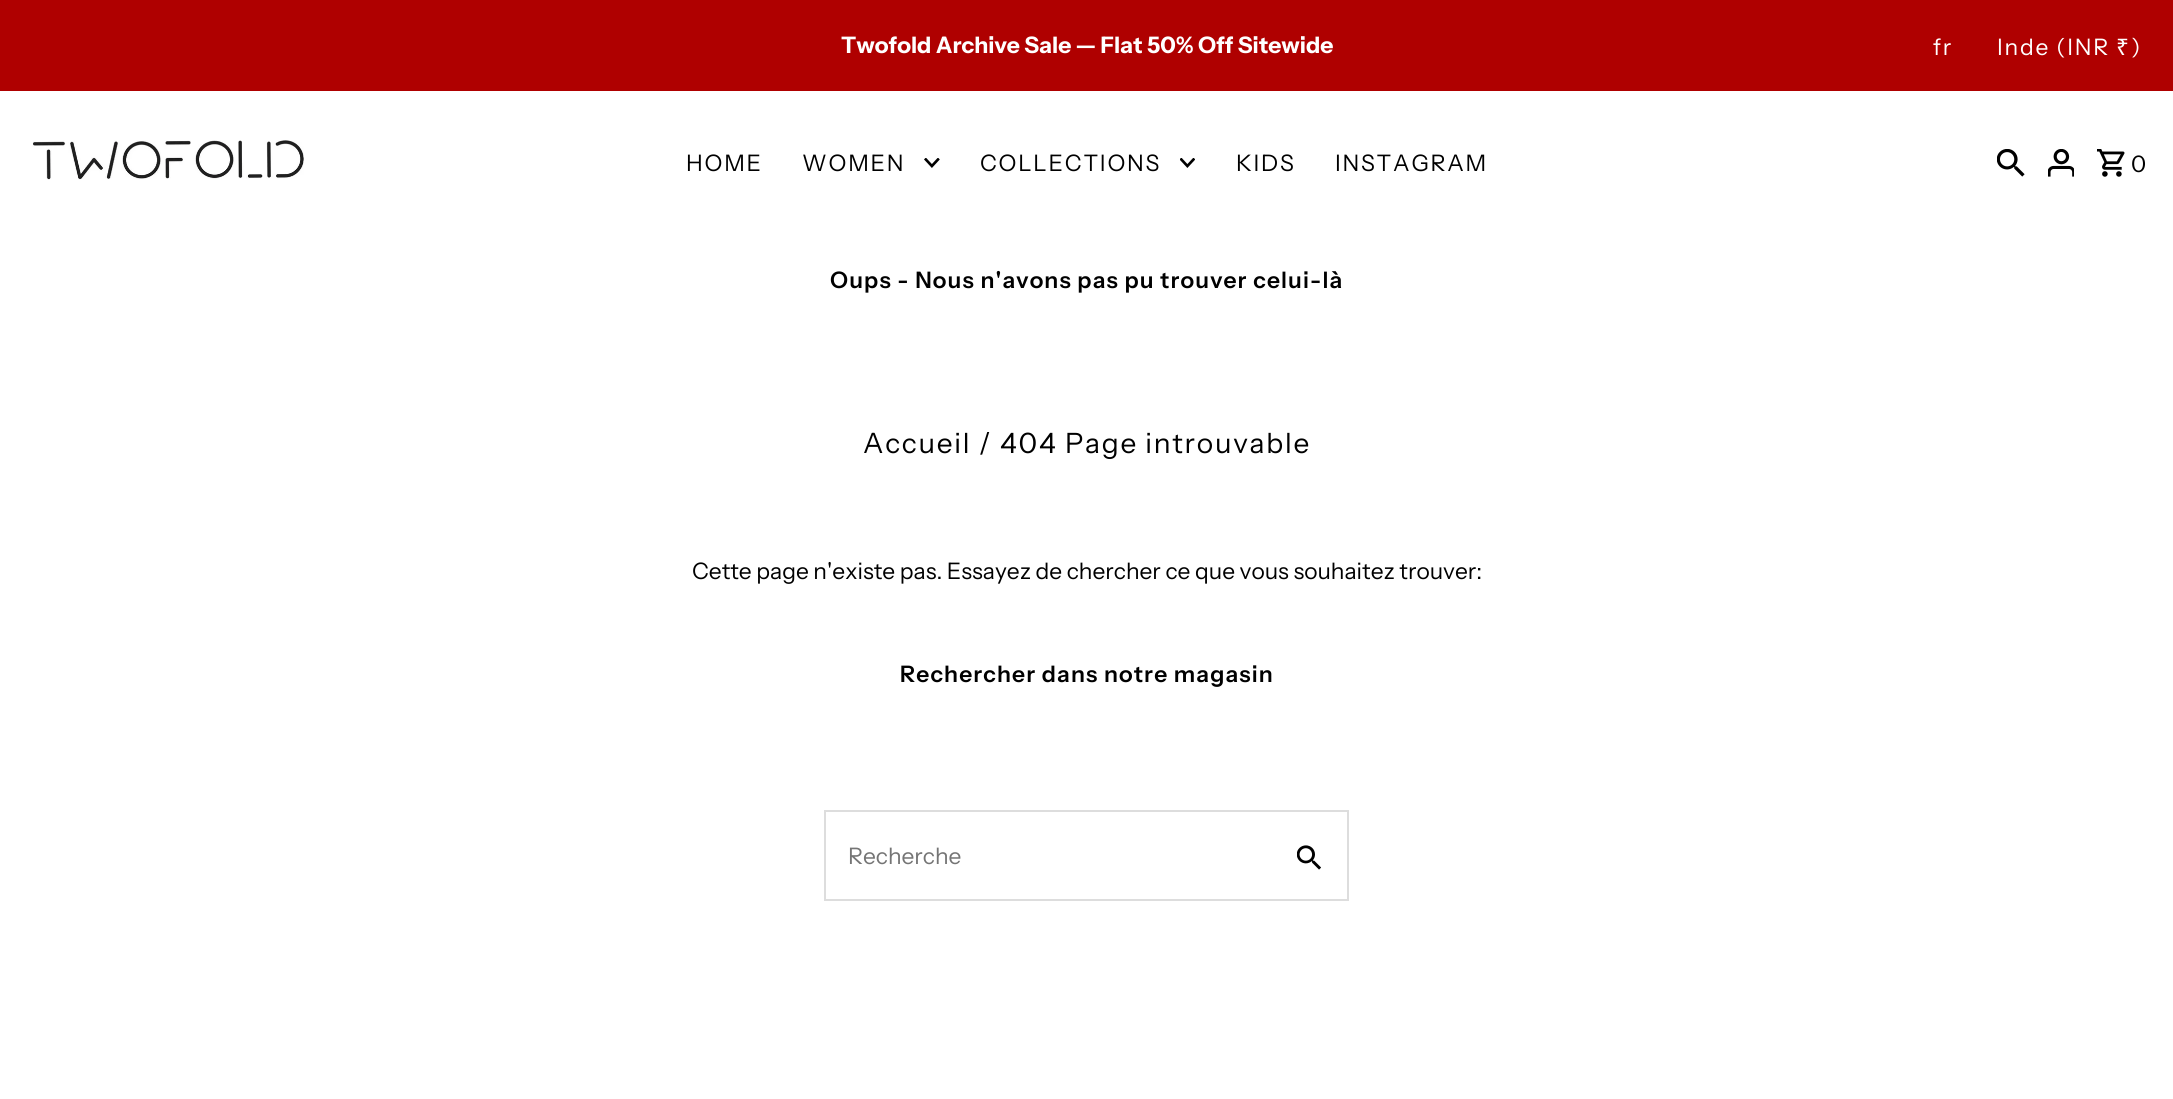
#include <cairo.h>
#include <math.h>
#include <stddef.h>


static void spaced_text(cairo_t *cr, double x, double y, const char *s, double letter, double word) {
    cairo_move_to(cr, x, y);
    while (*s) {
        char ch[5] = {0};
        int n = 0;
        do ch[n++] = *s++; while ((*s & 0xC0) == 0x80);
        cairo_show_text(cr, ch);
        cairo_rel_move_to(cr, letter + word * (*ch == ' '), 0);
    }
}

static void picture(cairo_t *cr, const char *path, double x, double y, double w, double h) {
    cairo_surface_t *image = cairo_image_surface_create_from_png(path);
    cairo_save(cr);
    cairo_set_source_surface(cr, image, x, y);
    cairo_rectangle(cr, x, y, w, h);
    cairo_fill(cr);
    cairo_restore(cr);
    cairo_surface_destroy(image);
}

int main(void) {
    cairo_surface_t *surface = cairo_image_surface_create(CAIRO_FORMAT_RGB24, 2173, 1099);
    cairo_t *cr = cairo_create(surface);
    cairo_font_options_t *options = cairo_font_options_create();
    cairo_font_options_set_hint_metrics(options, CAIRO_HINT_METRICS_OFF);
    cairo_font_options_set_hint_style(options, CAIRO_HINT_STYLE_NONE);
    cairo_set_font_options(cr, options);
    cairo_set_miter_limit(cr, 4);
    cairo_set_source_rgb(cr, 1, 1, 1);
    cairo_paint(cr);
    cairo_set_source_rgb(cr, 0.686, 0, 0);
    cairo_rectangle(cr, 0, 0, 2173, 91);
    cairo_fill(cr);
    cairo_select_font_face(cr, "Instrument Sans", CAIRO_FONT_SLANT_NORMAL, CAIRO_FONT_WEIGHT_BOLD);
    cairo_set_font_size(cr, 22.75);
    cairo_set_source_rgb(cr, 1, 1, 1);
    cairo_move_to(cr, 841, 53);
    cairo_show_text(cr, "Twofold Archive Sale — Flat 50% Off Sitewide");
    cairo_select_font_face(cr, "Instrument Sans", CAIRO_FONT_SLANT_NORMAL, CAIRO_FONT_WEIGHT_NORMAL);
    spaced_text(cr, 1933, 55, "fr", 1.75, 0);
    spaced_text(cr, 1997, 55, "Inde (INR", 1.75, 0);
    cairo_select_font_face(cr, "Noto Sans", CAIRO_FONT_SLANT_NORMAL, CAIRO_FONT_WEIGHT_NORMAL);
    spaced_text(cr, 2116, 55, "₹", 1.75, 0);
    cairo_select_font_face(cr, "Instrument Sans", CAIRO_FONT_SLANT_NORMAL, CAIRO_FONT_WEIGHT_NORMAL);
    spaced_text(cr, 2131, 55, ")", 1.75, 0);
    picture(cr, "img1.png", 32, 140, 272, 40);
    cairo_set_source_rgb(cr, 0, 0, 0);
    spaced_text(cr, 686, 171, "HOME", 1.75, 0);
    spaced_text(cr, 802, 171, "WOMEN", 1.75, 0);
    picture(cr, "img2.png", 924, 158, 16, 10);
    spaced_text(cr, 980, 171, "COLLECTIONS", 1.75, 0);
    picture(cr, "img3.png", 1180, 158, 15, 10);
    spaced_text(cr, 1236, 171, "KIDS", 1.75, 0);
    spaced_text(cr, 1335, 171, "INSTAGRAM", 1.75, 0);
    picture(cr, "img4.png", 1997, 149, 28, 28);
    picture(cr, "img5.png", 2048, 149, 26, 28);
    picture(cr, "img6.png", 2097, 149, 28, 28);
    spaced_text(cr, 2131, 172, "0", 1.75, 0);
    cairo_select_font_face(cr, "Instrument Sans SemiBold", CAIRO_FONT_SLANT_NORMAL, CAIRO_FONT_WEIGHT_NORMAL);
    spaced_text(cr, 830, 288, "Oups - Nous n'avons pas pu trouver celui-là", 1.15, 0);
    cairo_select_font_face(cr, "Instrument Sans", CAIRO_FONT_SLANT_NORMAL, CAIRO_FONT_WEIGHT_NORMAL);
    cairo_set_font_size(cr, 28);
    spaced_text(cr, 863, 453, "Accueil / 404 Page introuvable", 1.75, 0);
    cairo_set_font_size(cr, 22.75);
    cairo_move_to(cr, 692, 579);
    cairo_show_text(cr, "Cette page n'existe pas. Essayez de chercher ce que vous souhaitez trouver:");
    cairo_select_font_face(cr, "Instrument Sans SemiBold", CAIRO_FONT_SLANT_NORMAL, CAIRO_FONT_WEIGHT_NORMAL);
    spaced_text(cr, 900, 682, "Rechercher dans notre magasin", 1.15, 0);
    cairo_rectangle(cr, 825, 811, 523, 89);
    cairo_set_source_rgb(cr, 0.867, 0.867, 0.867);
    cairo_stroke(cr);
    cairo_select_font_face(cr, "Instrument Sans", CAIRO_FONT_SLANT_NORMAL, CAIRO_FONT_WEIGHT_NORMAL);
    cairo_set_source_rgb(cr, 0.459, 0.459, 0.459);
    cairo_move_to(cr, 848, 864);
    cairo_show_text(cr, "Recherche");
    picture(cr, "img7.png", 1297, 845, 24, 25);
    cairo_surface_write_to_png(surface, "page.png");
    cairo_font_options_destroy(options);
    cairo_destroy(cr);
    cairo_surface_destroy(surface);
    return 0;
}
